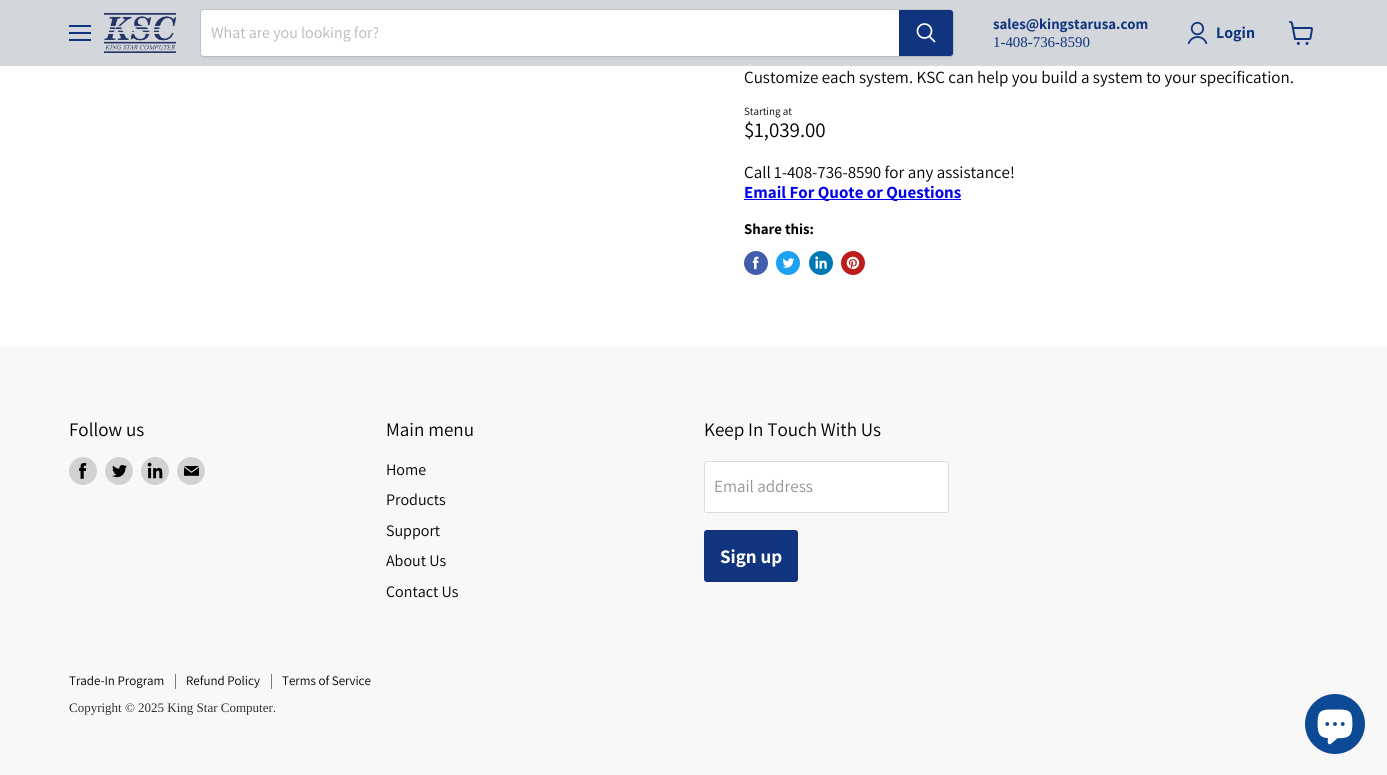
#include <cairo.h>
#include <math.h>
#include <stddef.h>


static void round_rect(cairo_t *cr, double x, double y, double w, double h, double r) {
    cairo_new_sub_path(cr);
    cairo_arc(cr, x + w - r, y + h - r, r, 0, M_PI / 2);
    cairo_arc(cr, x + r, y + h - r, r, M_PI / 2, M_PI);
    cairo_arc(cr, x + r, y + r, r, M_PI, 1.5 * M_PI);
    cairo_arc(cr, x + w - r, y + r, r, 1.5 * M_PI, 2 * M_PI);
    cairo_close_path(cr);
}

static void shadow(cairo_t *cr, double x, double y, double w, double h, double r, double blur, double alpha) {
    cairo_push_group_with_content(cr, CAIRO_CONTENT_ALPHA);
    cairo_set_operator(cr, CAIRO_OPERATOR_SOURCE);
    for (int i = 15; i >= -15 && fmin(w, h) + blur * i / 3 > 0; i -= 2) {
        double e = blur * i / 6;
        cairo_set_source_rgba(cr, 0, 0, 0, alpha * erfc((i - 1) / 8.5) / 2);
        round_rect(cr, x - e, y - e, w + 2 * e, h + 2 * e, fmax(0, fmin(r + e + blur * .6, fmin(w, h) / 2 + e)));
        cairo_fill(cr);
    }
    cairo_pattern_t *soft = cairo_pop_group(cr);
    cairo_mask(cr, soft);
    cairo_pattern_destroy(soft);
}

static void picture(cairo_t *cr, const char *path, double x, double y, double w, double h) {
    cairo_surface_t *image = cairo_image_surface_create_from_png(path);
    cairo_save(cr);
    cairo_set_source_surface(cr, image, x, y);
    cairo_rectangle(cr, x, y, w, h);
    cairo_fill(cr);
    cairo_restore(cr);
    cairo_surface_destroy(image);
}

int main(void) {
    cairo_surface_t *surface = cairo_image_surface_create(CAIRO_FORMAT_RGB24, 1387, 775);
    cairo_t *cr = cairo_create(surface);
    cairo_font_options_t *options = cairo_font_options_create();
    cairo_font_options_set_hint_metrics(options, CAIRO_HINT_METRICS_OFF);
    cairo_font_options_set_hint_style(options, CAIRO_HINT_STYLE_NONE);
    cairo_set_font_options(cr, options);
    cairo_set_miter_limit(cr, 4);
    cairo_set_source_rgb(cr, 1, 1, 1);
    cairo_paint(cr);
    cairo_set_source_rgb(cr, 0.827, 0.843, 0.859);
    cairo_rectangle(cr, 0, 0, 1387, 66);
    cairo_fill(cr);
    cairo_set_source_rgb(cr, 0.063, 0.204, 0.494);
    cairo_rectangle(cr, 69, 25, 22, 2);
    cairo_fill(cr);
    cairo_rectangle(cr, 69, 32, 22, 2);
    cairo_fill(cr);
    cairo_rectangle(cr, 69, 39, 22, 2);
    cairo_fill(cr);
    picture(cr, "img1.png", 103, 13, 73, 40);
    cairo_set_source_rgb(cr, 0.502, 0.502, 0.502);
    shadow(cr, 200, 11, 754, 48, 4, 1.5, 0.11);
    round_rect(cr, 200.5, 9.5, 753, 47, 3.5);
    cairo_set_source_rgba(cr, 0.502, 0.502, 0.502, 0.2);
    cairo_set_line_width(cr, 1);
    cairo_stroke(cr);
    cairo_set_source_rgb(cr, 1, 1, 1);
    cairo_new_path(cr);
    cairo_move_to(cr, 204, 10);
    cairo_line_to(cr, 899, 10);
    cairo_line_to(cr, 899, 56);
    cairo_line_to(cr, 204, 56);
    cairo_curve_to(cr, 202.5, 56, 201, 54.5, 201, 53);
    cairo_line_to(cr, 201, 13);
    cairo_curve_to(cr, 201, 11.5, 202.5, 10, 204, 10);
    cairo_close_path(cr);
    cairo_fill(cr);
    cairo_select_font_face(cr, "Assistant", CAIRO_FONT_SLANT_NORMAL, CAIRO_FONT_WEIGHT_NORMAL);
    cairo_set_font_size(cr, 16);
    cairo_set_source_rgb(cr, 0.722, 0.722, 0.722);
    cairo_move_to(cr, 211, 38);
    cairo_show_text(cr, "What are you looking for?");
    cairo_set_source_rgb(cr, 0.063, 0.204, 0.494);
    cairo_new_path(cr);
    cairo_move_to(cr, 899.5, 10.5);
    cairo_line_to(cr, 950, 10.5);
    cairo_curve_to(cr, 951.5, 10.5, 952.5, 11.5, 952.5, 13);
    cairo_line_to(cr, 952.5, 53);
    cairo_curve_to(cr, 952.5, 54.5, 951.5, 55.5, 950, 55.5);
    cairo_line_to(cr, 899.5, 55.5);
    cairo_close_path(cr);
    cairo_fill_preserve(cr);
    cairo_stroke(cr);
    cairo_new_path(cr);
    cairo_move_to(cr, 934.5, 41.5);
    cairo_line_to(cr, 929.5, 36.5);
    cairo_set_source_rgb(cr, 1, 1, 1);
    cairo_set_line_width(cr, 1.7);
    cairo_set_line_cap(cr, CAIRO_LINE_CAP_ROUND);
    cairo_stroke(cr);
    cairo_arc(cr, 924.5, 31, 7, 0, 2 * M_PI);
    cairo_set_line_cap(cr, CAIRO_LINE_CAP_BUTT);
    cairo_stroke(cr);
    cairo_select_font_face(cr, "Assistant", CAIRO_FONT_SLANT_NORMAL, CAIRO_FONT_WEIGHT_BOLD);
    cairo_set_font_size(cr, 14.9);
    cairo_set_source_rgb(cr, 0.063, 0.204, 0.494);
    cairo_move_to(cr, 993, 29);
    cairo_show_text(cr, "sales@kingstarusa.com");
    cairo_select_font_face(cr, "Liberation Serif", CAIRO_FONT_SLANT_NORMAL, CAIRO_FONT_WEIGHT_NORMAL);
    cairo_move_to(cr, 993, 47);
    cairo_show_text(cr, "1-408-736-8590");
    picture(cr, "img2.png", 1187, 21, 21, 24);
    cairo_select_font_face(cr, "Assistant", CAIRO_FONT_SLANT_NORMAL, CAIRO_FONT_WEIGHT_BOLD);
    cairo_set_font_size(cr, 16);
    cairo_move_to(cr, 1216, 38);
    cairo_show_text(cr, "Login");
    picture(cr, "img3.png", 1289, 21, 24, 24);
    cairo_select_font_face(cr, "Assistant", CAIRO_FONT_SLANT_NORMAL, CAIRO_FONT_WEIGHT_NORMAL);
    cairo_set_font_size(cr, 17);
    cairo_set_source_rgb(cr, 0, 0, 0);
    cairo_move_to(cr, 744, 83);
    cairo_show_text(cr, "Customize each system. KSC can help you build a system to your specification.");
    cairo_set_font_size(cr, 11);
    cairo_move_to(cr, 744, 115);
    cairo_show_text(cr, "Starting at");
    cairo_set_font_size(cr, 21);
    cairo_move_to(cr, 744, 137);
    cairo_show_text(cr, "$1,039.00");
    cairo_set_font_size(cr, 17);
    cairo_move_to(cr, 744, 178);
    cairo_show_text(cr, "Call 1-408-736-8590 for any assistance!");
    cairo_set_source_rgb(cr, 0, 0, 0.933);
    cairo_rectangle(cr, 744, 199, 217, 1);
    cairo_fill(cr);
    cairo_select_font_face(cr, "Assistant", CAIRO_FONT_SLANT_NORMAL, CAIRO_FONT_WEIGHT_BOLD);
    cairo_move_to(cr, 744, 198);
    cairo_show_text(cr, "Email For Quote or Questions");
    cairo_set_font_size(cr, 14.9);
    cairo_set_source_rgb(cr, 0, 0, 0);
    cairo_move_to(cr, 744, 234);
    cairo_show_text(cr, "Share this:");
    cairo_set_source_rgb(cr, 0.259, 0.365, 0.671);
    cairo_new_path(cr);
    cairo_arc(cr, 756, 263, 12, 0, 2 * M_PI);
    cairo_fill(cr);
    picture(cr, "img4.png", 752, 256, 7, 14);
    cairo_set_source_rgb(cr, 0.114, 0.631, 0.949);
    cairo_arc(cr, 788, 263, 12, 0, 2 * M_PI);
    cairo_fill(cr);
    picture(cr, "img5.png", 782, 258, 13, 10);
    cairo_set_source_rgb(cr, 0, 0.467, 0.71);
    cairo_arc(cr, 821, 263, 12, 0, 2 * M_PI);
    cairo_fill(cr);
    picture(cr, "img6.png", 815, 256, 12, 13);
    cairo_set_source_rgb(cr, 0.741, 0.11, 0.11);
    cairo_arc(cr, 853, 263, 12, 0, 2 * M_PI);
    cairo_fill(cr);
    picture(cr, "img7.png", 846, 256, 14, 14);
    cairo_set_source_rgb(cr, 0.969, 0.969, 0.969);
    cairo_rectangle(cr, 0, 346, 1387, 429);
    cairo_fill(cr);
    cairo_select_font_face(cr, "Assistant", CAIRO_FONT_SLANT_NORMAL, CAIRO_FONT_WEIGHT_NORMAL);
    cairo_set_font_size(cr, 19.1);
    cairo_set_source_rgb(cr, 0, 0, 0);
    cairo_move_to(cr, 69, 436);
    cairo_show_text(cr, "Follow us");
    cairo_set_source_rgb(cr, 0.824, 0.824, 0.824);
    cairo_new_path(cr);
    cairo_arc(cr, 83, 471, 14, 0, 2 * M_PI);
    cairo_fill(cr);
    picture(cr, "img8.png", 79, 463, 8, 16);
    cairo_arc(cr, 119, 471, 14, 0, 2 * M_PI);
    cairo_fill(cr);
    picture(cr, "img9.png", 112, 465, 15, 13);
    cairo_arc(cr, 155, 471, 14, 0, 2 * M_PI);
    cairo_fill(cr);
    picture(cr, "img10.png", 147, 462, 16, 17);
    cairo_arc(cr, 191, 471, 14, 0, 2 * M_PI);
    cairo_fill(cr);
    picture(cr, "img11.png", 184, 466, 15, 10);
    cairo_set_source_rgb(cr, 0, 0, 0);
    cairo_move_to(cr, 386, 436);
    cairo_show_text(cr, "Main menu");
    cairo_set_font_size(cr, 16);
    cairo_move_to(cr, 386, 475);
    cairo_show_text(cr, "Home");
    cairo_move_to(cr, 386, 505);
    cairo_show_text(cr, "Products");
    cairo_move_to(cr, 386, 536);
    cairo_show_text(cr, "Support");
    cairo_move_to(cr, 386, 566);
    cairo_show_text(cr, "About Us");
    cairo_move_to(cr, 386, 597);
    cairo_show_text(cr, "Contact Us");
    cairo_set_font_size(cr, 19.1);
    cairo_move_to(cr, 704, 436);
    cairo_show_text(cr, "Keep In Touch With Us");
    cairo_set_source_rgb(cr, 1, 1, 1);
    round_rect(cr, 704.5, 461.5, 244, 51, 2.5);
    cairo_fill_preserve(cr);
    cairo_set_source_rgb(cr, 0.867, 0.867, 0.867);
    cairo_set_line_width(cr, 1);
    cairo_stroke(cr);
    cairo_set_font_size(cr, 17);
    cairo_set_source_rgb(cr, 0.58, 0.58, 0.58);
    cairo_move_to(cr, 714, 492);
    cairo_show_text(cr, "Email address");
    cairo_set_source_rgb(cr, 0.063, 0.204, 0.494);
    round_rect(cr, 704.5, 530.5, 93, 51, 2.5);
    cairo_fill_preserve(cr);
    cairo_stroke(cr);
    cairo_select_font_face(cr, "Assistant", CAIRO_FONT_SLANT_NORMAL, CAIRO_FONT_WEIGHT_BOLD);
    cairo_set_font_size(cr, 19.1);
    cairo_set_source_rgb(cr, 1, 1, 1);
    cairo_move_to(cr, 720, 563);
    cairo_show_text(cr, "Sign up");
    cairo_set_source_rgb(cr, 0.486, 0.486, 0.486);
    cairo_rectangle(cr, 175, 674, 1, 15);
    cairo_fill(cr);
    cairo_select_font_face(cr, "Assistant", CAIRO_FONT_SLANT_NORMAL, CAIRO_FONT_WEIGHT_NORMAL);
    cairo_set_font_size(cr, 13);
    cairo_set_source_rgb(cr, 0, 0, 0);
    cairo_move_to(cr, 69, 685);
    cairo_show_text(cr, "Trade-In Program");
    cairo_set_source_rgb(cr, 0.486, 0.486, 0.486);
    cairo_rectangle(cr, 271, 674, 1, 15);
    cairo_fill(cr);
    cairo_set_source_rgb(cr, 0, 0, 0);
    cairo_move_to(cr, 186, 685);
    cairo_show_text(cr, "Refund Policy");
    cairo_move_to(cr, 282, 685);
    cairo_show_text(cr, "Terms of Service");
    cairo_select_font_face(cr, "Liberation Serif", CAIRO_FONT_SLANT_NORMAL, CAIRO_FONT_WEIGHT_NORMAL);
    cairo_set_source_rgb(cr, 0.192, 0.192, 0.192);
    cairo_move_to(cr, 69, 712);
    cairo_show_text(cr, "Copyright © 2025 King Star Computer.");
    cairo_set_source_rgb(cr, 0.047, 0.29, 0.588);
    cairo_new_path(cr);
    cairo_arc(cr, 1335, 724, 30, 0, 2 * M_PI);
    cairo_fill(cr);
    picture(cr, "img12.png", 1317, 709, 36, 36);
    cairo_surface_write_to_png(surface, "page.png");
    cairo_font_options_destroy(options);
    cairo_destroy(cr);
    cairo_surface_destroy(surface);
    return 0;
}
